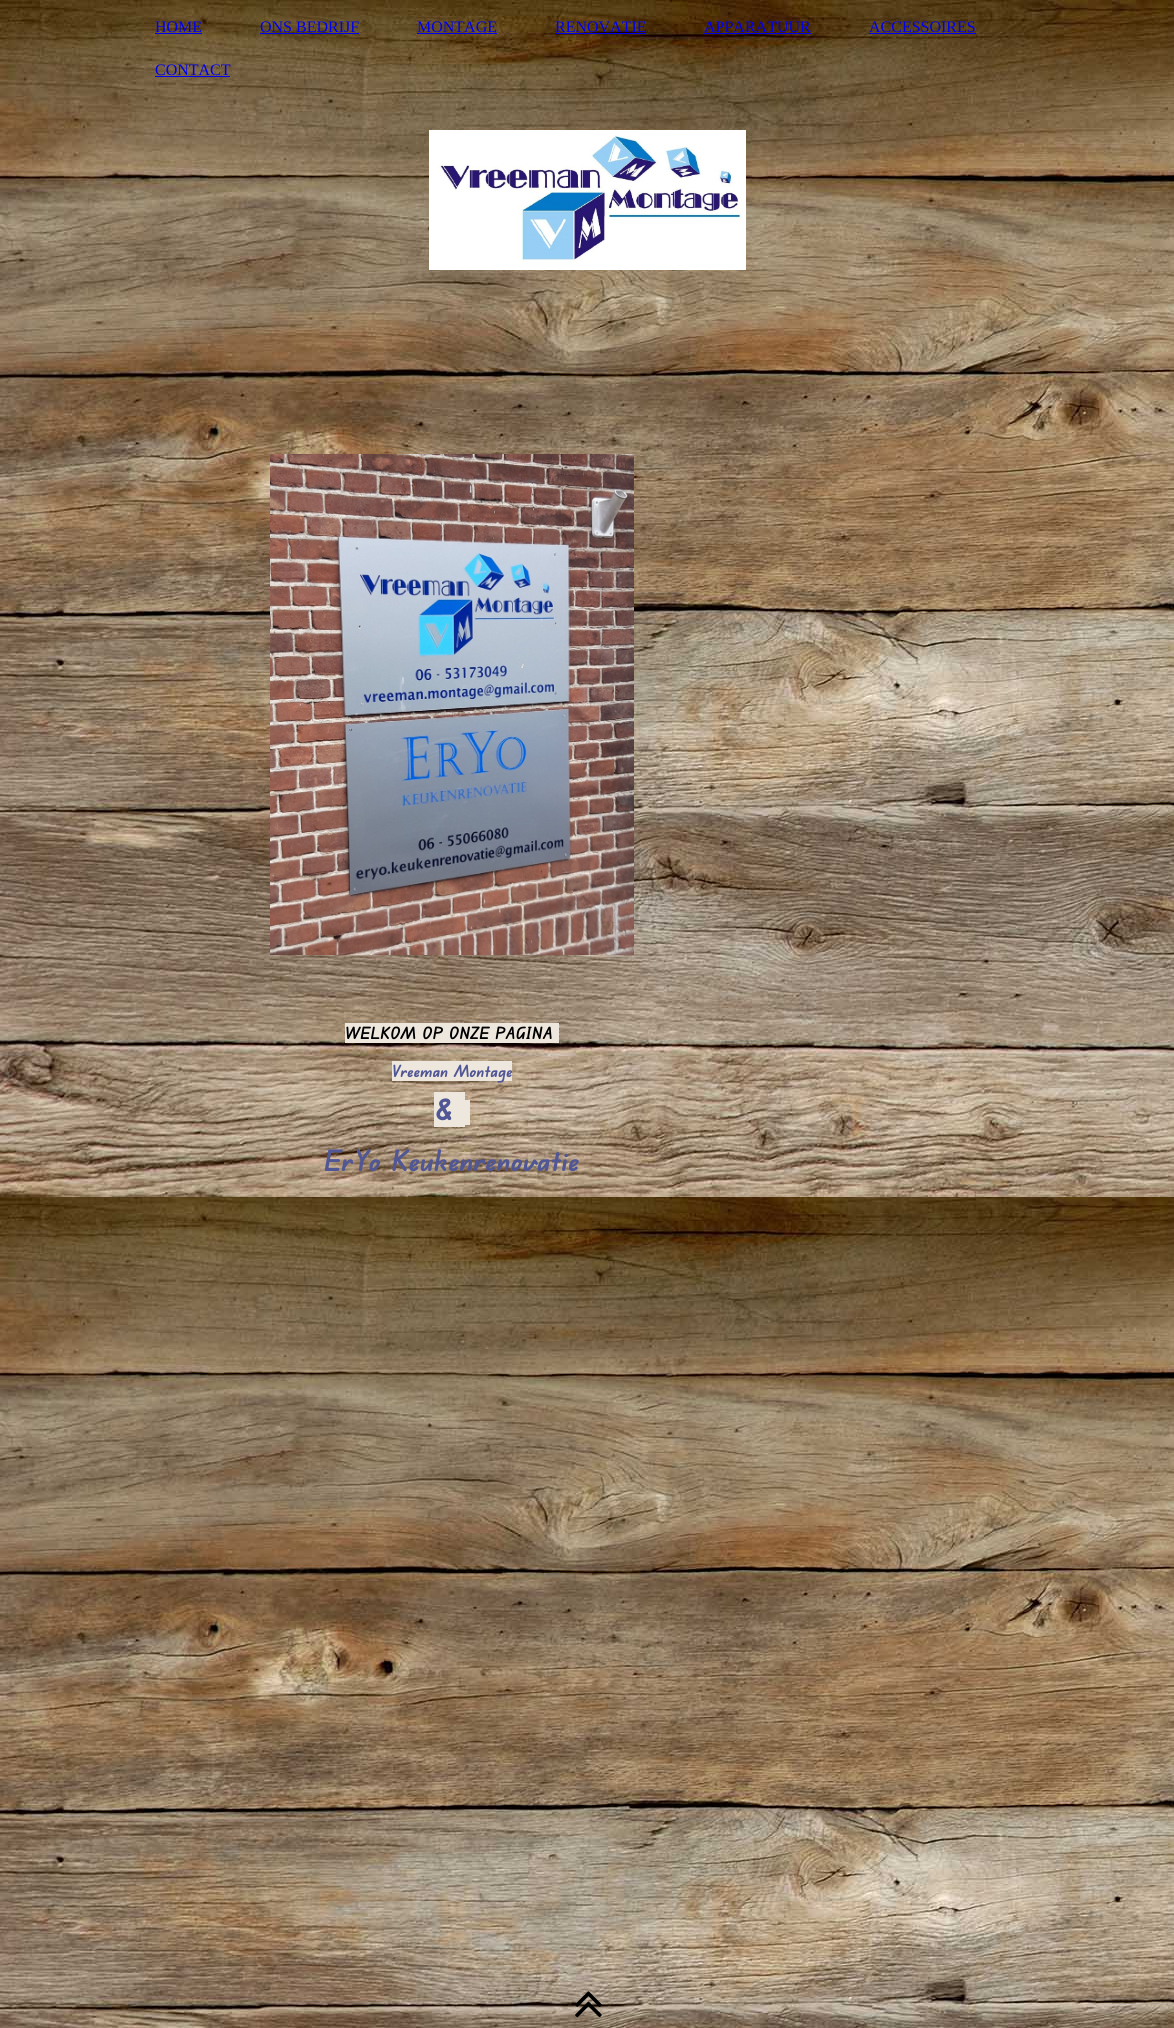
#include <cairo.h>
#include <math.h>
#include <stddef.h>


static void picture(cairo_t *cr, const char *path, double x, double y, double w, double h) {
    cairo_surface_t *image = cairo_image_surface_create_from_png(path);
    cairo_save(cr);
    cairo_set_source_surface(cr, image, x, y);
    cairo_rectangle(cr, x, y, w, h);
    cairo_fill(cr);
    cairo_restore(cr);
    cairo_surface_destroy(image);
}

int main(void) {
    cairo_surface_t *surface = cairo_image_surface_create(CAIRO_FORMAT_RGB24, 1174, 2028);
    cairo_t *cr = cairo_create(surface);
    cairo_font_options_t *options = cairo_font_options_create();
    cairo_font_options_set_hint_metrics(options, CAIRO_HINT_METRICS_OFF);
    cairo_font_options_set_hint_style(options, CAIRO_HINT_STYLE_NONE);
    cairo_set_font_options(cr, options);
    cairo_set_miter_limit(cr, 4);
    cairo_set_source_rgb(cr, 1, 1, 1);
    cairo_paint(cr);
    picture(cr, "img1.png", 0, 0, 1174, 2028);
    cairo_select_font_face(cr, "Liberation Serif", CAIRO_FONT_SLANT_NORMAL, CAIRO_FONT_WEIGHT_NORMAL);
    cairo_set_font_size(cr, 16);
    cairo_set_source_rgb(cr, 0, 0, 0.933);
    cairo_move_to(cr, 155, 32);
    cairo_show_text(cr, "HOME");
    cairo_rectangle(cr, 155, 33, 47, 1);
    cairo_fill(cr);
    cairo_move_to(cr, 260, 32);
    cairo_show_text(cr, "ONS BEDRIJF");
    cairo_rectangle(cr, 260, 33, 99, 1);
    cairo_fill(cr);
    cairo_move_to(cr, 417, 32);
    cairo_show_text(cr, "MONTAGE");
    cairo_rectangle(cr, 417, 33, 80, 1);
    cairo_fill(cr);
    cairo_move_to(cr, 555, 32);
    cairo_show_text(cr, "RENOVATIE");
    cairo_rectangle(cr, 555, 33, 91, 1);
    cairo_fill(cr);
    cairo_move_to(cr, 704, 32);
    cairo_show_text(cr, "APPARATUUR");
    cairo_rectangle(cr, 704, 33, 107, 1);
    cairo_fill(cr);
    cairo_move_to(cr, 869, 32);
    cairo_show_text(cr, "ACCESSOIRES");
    cairo_rectangle(cr, 869, 33, 107, 1);
    cairo_fill(cr);
    cairo_move_to(cr, 155, 75);
    cairo_show_text(cr, "CONTACT");
    cairo_rectangle(cr, 155, 76, 75, 1);
    cairo_fill(cr);
    picture(cr, "img2.png", 429, 130, 317, 140);
    picture(cr, "img3.png", 270, 454, 364, 501);
    cairo_set_source_rgb(cr, 0.933, 0.906, 0.867);
    cairo_rectangle(cr, 345, 1023, 214, 20);
    cairo_fill(cr);
    cairo_select_font_face(cr, "Edu QLD Beginner", CAIRO_FONT_SLANT_NORMAL, CAIRO_FONT_WEIGHT_BOLD);
    cairo_set_source_rgb(cr, 0, 0, 0);
    cairo_move_to(cr, 345, 1039);
    cairo_show_text(cr, "WELKOM OP ONZE PAGINA");
    cairo_set_source_rgb(cr, 0.933, 0.906, 0.867);
    cairo_rectangle(cr, 392, 1061, 120, 20);
    cairo_fill(cr);
    cairo_set_source_rgb(cr, 0.318, 0.337, 0.58);
    cairo_move_to(cr, 392, 1077);
    cairo_show_text(cr, "Vreeman Montage");
    cairo_set_source_rgb(cr, 0.933, 0.906, 0.867);
    cairo_rectangle(cr, 434, 1092, 31, 35);
    cairo_fill(cr);
    cairo_set_font_size(cr, 28);
    cairo_set_source_rgb(cr, 0.318, 0.337, 0.58);
    cairo_move_to(cr, 434, 1120);
    cairo_show_text(cr, "&");
    cairo_set_source_rgb(cr, 0.933, 0.906, 0.867);
    cairo_rectangle(cr, 465, 1100, 5, 25);
    cairo_fill(cr);
    cairo_set_source_rgb(cr, 0.318, 0.337, 0.58);
    cairo_move_to(cr, 324, 1171);
    cairo_show_text(cr, "ErYo Keukenrenovatie");
    picture(cr, "img4.png", 575, 1991, 27, 27);
    cairo_surface_write_to_png(surface, "page.png");
    cairo_font_options_destroy(options);
    cairo_destroy(cr);
    cairo_surface_destroy(surface);
    return 0;
}
